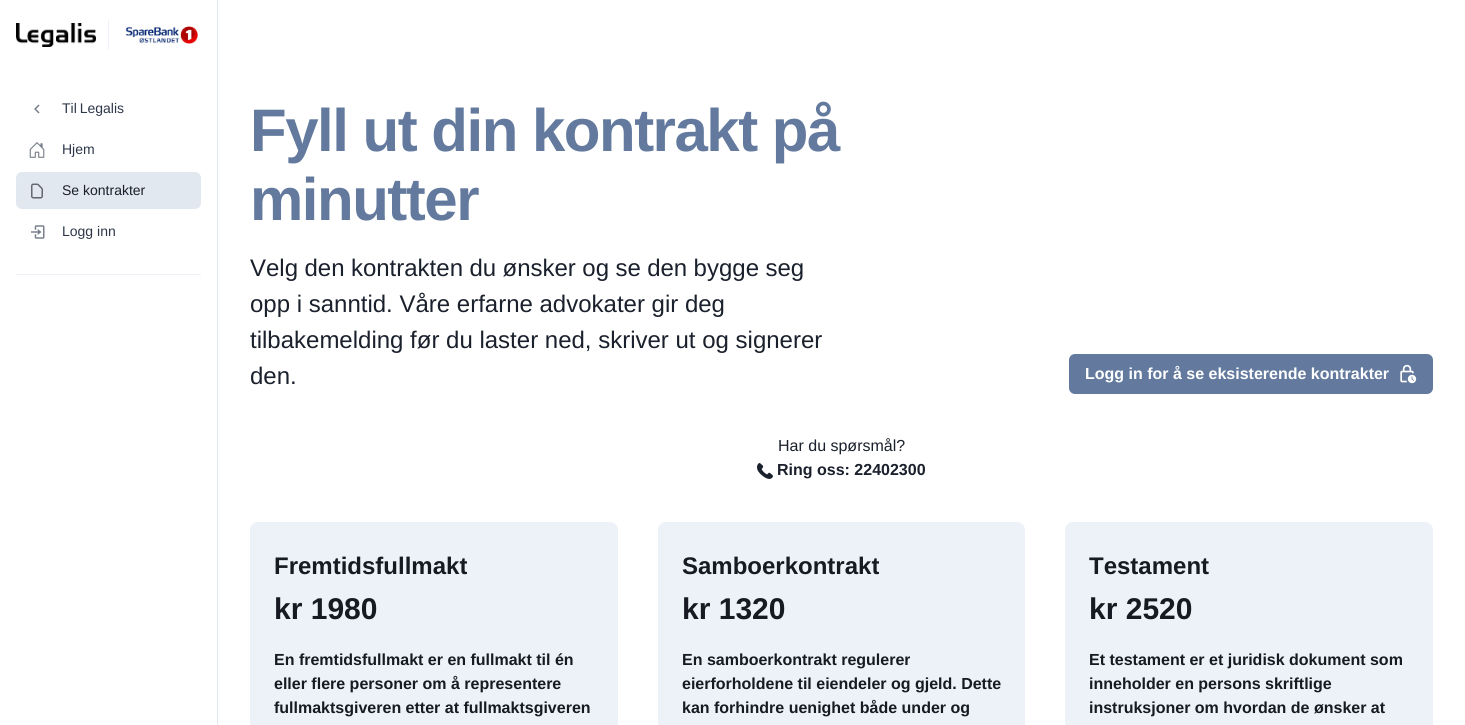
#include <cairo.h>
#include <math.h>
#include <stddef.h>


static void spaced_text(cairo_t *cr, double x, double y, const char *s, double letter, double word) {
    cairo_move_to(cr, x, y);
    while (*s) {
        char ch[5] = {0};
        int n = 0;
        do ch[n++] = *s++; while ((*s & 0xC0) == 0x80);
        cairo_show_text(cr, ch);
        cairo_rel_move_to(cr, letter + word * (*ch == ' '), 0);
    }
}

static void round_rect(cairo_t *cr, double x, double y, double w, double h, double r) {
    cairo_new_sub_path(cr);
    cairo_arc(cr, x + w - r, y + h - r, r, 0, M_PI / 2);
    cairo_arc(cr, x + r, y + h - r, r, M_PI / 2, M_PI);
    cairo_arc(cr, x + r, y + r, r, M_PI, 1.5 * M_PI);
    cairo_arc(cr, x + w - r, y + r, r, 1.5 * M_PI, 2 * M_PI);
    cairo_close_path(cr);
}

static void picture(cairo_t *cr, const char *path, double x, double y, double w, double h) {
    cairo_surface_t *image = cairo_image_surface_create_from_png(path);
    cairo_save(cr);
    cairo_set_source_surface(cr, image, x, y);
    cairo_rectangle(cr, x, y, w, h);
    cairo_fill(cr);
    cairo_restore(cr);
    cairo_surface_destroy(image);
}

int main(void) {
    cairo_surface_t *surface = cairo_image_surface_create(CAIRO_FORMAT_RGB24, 1465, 725);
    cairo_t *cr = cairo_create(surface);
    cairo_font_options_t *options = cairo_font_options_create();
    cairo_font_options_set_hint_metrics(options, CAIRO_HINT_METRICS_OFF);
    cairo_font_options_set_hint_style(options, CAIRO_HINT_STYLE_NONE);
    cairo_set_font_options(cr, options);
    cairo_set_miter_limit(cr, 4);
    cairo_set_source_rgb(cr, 1, 1, 1);
    cairo_paint(cr);
    cairo_set_source_rgb(cr, 0.886, 0.91, 0.941);
    cairo_rectangle(cr, 217, 0, 1, 725);
    cairo_fill(cr);
    picture(cr, "img1.png", 16, 23, 80, 24);
    cairo_set_source_rgb(cr, 0.933, 0.945, 0.965);
    cairo_rectangle(cr, 108, 20, 1, 30);
    cairo_fill(cr);
    picture(cr, "img2.png", 125, 26, 73, 18);
    picture(cr, "img3.png", 34, 104, 6, 10);
    cairo_select_font_face(cr, "Liberation Sans", CAIRO_FONT_SLANT_NORMAL, CAIRO_FONT_WEIGHT_NORMAL);
    cairo_set_font_size(cr, 14);
    cairo_set_source_rgb(cr, 0.176, 0.216, 0.282);
    spaced_text(cr, 62, 113, "Til Legalis", 0, -1);
    picture(cr, "img4.png", 29, 142, 16, 16);
    cairo_move_to(cr, 62, 154);
    cairo_show_text(cr, "Hjem");
    cairo_set_source_rgb(cr, 0.886, 0.91, 0.941);
    round_rect(cr, 16, 172, 185, 37, 6);
    cairo_fill(cr);
    picture(cr, "img5.png", 31, 183, 12, 16);
    cairo_set_source_rgb(cr, 0.102, 0.125, 0.173);
    cairo_move_to(cr, 62, 195);
    cairo_show_text(cr, "Se kontrakter");
    picture(cr, "img6.png", 31, 225, 14, 14);
    cairo_set_source_rgb(cr, 0.176, 0.216, 0.282);
    cairo_move_to(cr, 62, 236);
    cairo_show_text(cr, "Logg inn");
    cairo_set_source_rgb(cr, 0.933, 0.945, 0.965);
    cairo_rectangle(cr, 16, 274, 185, 1);
    cairo_fill(cr);
    cairo_select_font_face(cr, "Liberation Sans", CAIRO_FONT_SLANT_NORMAL, CAIRO_FONT_WEIGHT_BOLD);
    cairo_set_font_size(cr, 60);
    cairo_set_source_rgb(cr, 0.388, 0.478, 0.62);
    spaced_text(cr, 250, 151, "Fyll ut din kontrakt på", -1.5, 0);
    spaced_text(cr, 250, 220, "minutter", -1.5, 0);
    cairo_select_font_face(cr, "Liberation Sans", CAIRO_FONT_SLANT_NORMAL, CAIRO_FONT_WEIGHT_NORMAL);
    cairo_set_font_size(cr, 24);
    cairo_set_source_rgb(cr, 0.102, 0.125, 0.173);
    spaced_text(cr, 250, 276, "Velg den kontrakten du ønsker og se den bygge seg", 0, -0.25);
    cairo_move_to(cr, 250, 312);
    cairo_show_text(cr, "opp i sanntid. Våre erfarne advokater gir deg");
    cairo_move_to(cr, 250, 348);
    cairo_show_text(cr, "tilbakemelding før du laster ned, skriver ut og signerer");
    cairo_move_to(cr, 250, 384);
    cairo_show_text(cr, "den.");
    cairo_set_source_rgb(cr, 0.388, 0.478, 0.62);
    round_rect(cr, 1069, 354, 364, 40, 6);
    cairo_fill(cr);
    cairo_select_font_face(cr, "Liberation Sans", CAIRO_FONT_SLANT_NORMAL, CAIRO_FONT_WEIGHT_BOLD);
    cairo_set_font_size(cr, 16);
    cairo_set_source_rgb(cr, 1, 1, 1);
    cairo_move_to(cr, 1085, 379);
    cairo_show_text(cr, "Logg in for å se eksisterende kontrakter");
    picture(cr, "img7.png", 1400, 364, 17, 20);
    cairo_select_font_face(cr, "Liberation Sans", CAIRO_FONT_SLANT_NORMAL, CAIRO_FONT_WEIGHT_NORMAL);
    cairo_set_source_rgb(cr, 0.102, 0.125, 0.173);
    cairo_move_to(cr, 778, 451);
    cairo_show_text(cr, "Har du spørsmål?");
    picture(cr, "img8.png", 757, 463, 16, 16);
    cairo_select_font_face(cr, "Liberation Sans", CAIRO_FONT_SLANT_NORMAL, CAIRO_FONT_WEIGHT_BOLD);
    cairo_move_to(cr, 777, 475);
    cairo_show_text(cr, "Ring oss: 22402300");
    cairo_set_source_rgb(cr, 0.929, 0.949, 0.969);
    cairo_new_path(cr);
    cairo_move_to(cr, 258, 522);
    cairo_line_to(cr, 610, 522);
    cairo_curve_to(cr, 614.5, 522, 618, 525.5, 618, 530);
    cairo_line_to(cr, 618, 725);
    cairo_line_to(cr, 250, 725);
    cairo_line_to(cr, 250, 530);
    cairo_curve_to(cr, 250, 525.5, 253.5, 522, 258, 522);
    cairo_close_path(cr);
    cairo_fill(cr);
    cairo_set_font_size(cr, 24);
    cairo_set_source_rgb(cr, 0.09, 0.098, 0.137);
    cairo_move_to(cr, 274, 574);
    cairo_show_text(cr, "Fremtidsfullmakt");
    cairo_set_font_size(cr, 30);
    cairo_move_to(cr, 274, 619);
    cairo_show_text(cr, "kr 1980");
    cairo_set_font_size(cr, 16);
    cairo_move_to(cr, 274, 665);
    cairo_show_text(cr, "En fremtidsfullmakt er en fullmakt til én");
    cairo_move_to(cr, 274, 689);
    cairo_show_text(cr, "eller flere personer om å representere");
    cairo_move_to(cr, 274, 713);
    cairo_show_text(cr, "fullmaktsgiveren etter at fullmaktsgiveren");
    cairo_set_source_rgb(cr, 0.929, 0.949, 0.969);
    cairo_new_path(cr);
    cairo_move_to(cr, 666, 522);
    cairo_line_to(cr, 1017, 522);
    cairo_curve_to(cr, 1021.5, 522, 1025, 525.5, 1025, 530);
    cairo_line_to(cr, 1025, 725);
    cairo_line_to(cr, 658, 725);
    cairo_line_to(cr, 658, 530);
    cairo_curve_to(cr, 658, 525.5, 661.5, 522, 666, 522);
    cairo_close_path(cr);
    cairo_fill(cr);
    cairo_set_font_size(cr, 24);
    cairo_set_source_rgb(cr, 0.09, 0.098, 0.137);
    cairo_move_to(cr, 682, 574);
    cairo_show_text(cr, "Samboerkontrakt");
    cairo_set_font_size(cr, 30);
    cairo_move_to(cr, 682, 619);
    cairo_show_text(cr, "kr 1320");
    cairo_set_font_size(cr, 16);
    cairo_move_to(cr, 682, 665);
    cairo_show_text(cr, "En samboerkontrakt regulerer");
    cairo_move_to(cr, 682, 689);
    cairo_show_text(cr, "eierforholdene til eiendeler og gjeld. Dette");
    cairo_move_to(cr, 682, 713);
    cairo_show_text(cr, "kan forhindre uenighet både under og");
    cairo_set_source_rgb(cr, 0.929, 0.949, 0.969);
    cairo_new_path(cr);
    cairo_move_to(cr, 1073, 522);
    cairo_line_to(cr, 1425, 522);
    cairo_curve_to(cr, 1429.5, 522, 1433, 525.5, 1433, 530);
    cairo_line_to(cr, 1433, 725);
    cairo_line_to(cr, 1065, 725);
    cairo_line_to(cr, 1065, 530);
    cairo_curve_to(cr, 1065, 525.5, 1068.5, 522, 1073, 522);
    cairo_close_path(cr);
    cairo_fill(cr);
    cairo_set_font_size(cr, 24);
    cairo_set_source_rgb(cr, 0.09, 0.098, 0.137);
    cairo_move_to(cr, 1089, 574);
    cairo_show_text(cr, "Testament");
    cairo_set_font_size(cr, 30);
    cairo_move_to(cr, 1089, 619);
    cairo_show_text(cr, "kr 2520");
    cairo_set_font_size(cr, 16);
    cairo_move_to(cr, 1089, 665);
    cairo_show_text(cr, "Et testament er et juridisk dokument som");
    cairo_move_to(cr, 1089, 689);
    cairo_show_text(cr, "inneholder en persons skriftlige");
    cairo_move_to(cr, 1089, 713);
    cairo_show_text(cr, "instruksjoner om hvordan de ønsker at");
    cairo_surface_write_to_png(surface, "page.png");
    cairo_font_options_destroy(options);
    cairo_destroy(cr);
    cairo_surface_destroy(surface);
    return 0;
}
